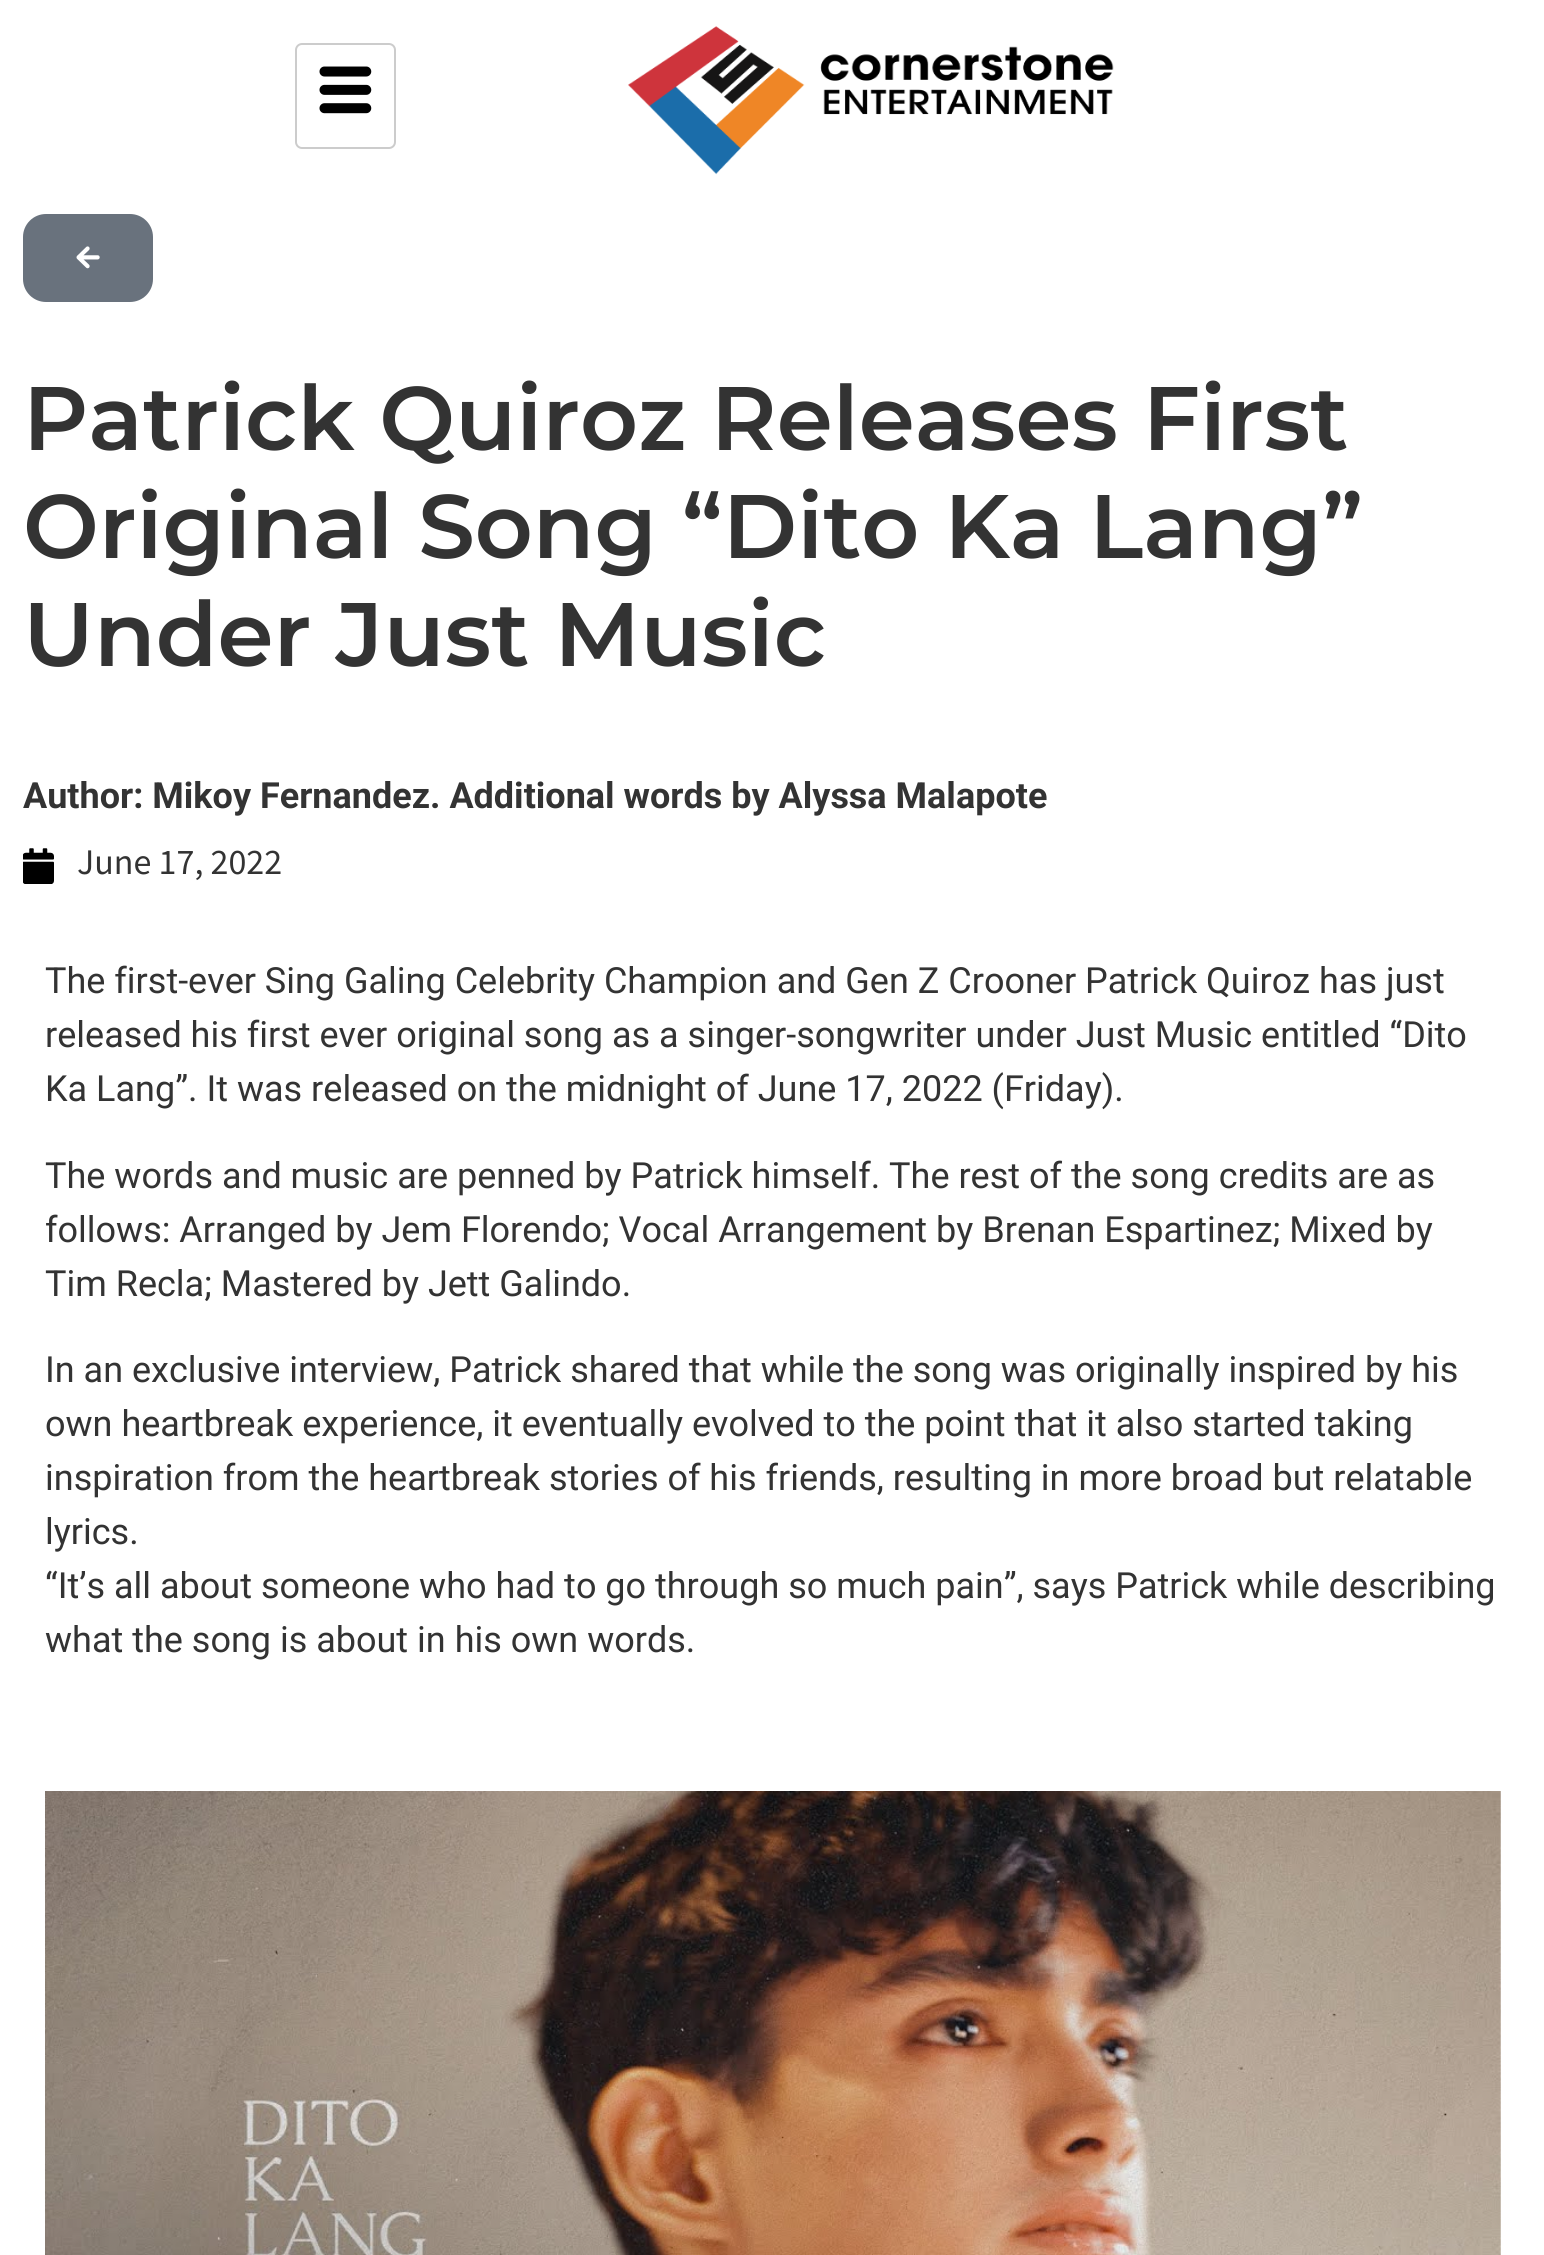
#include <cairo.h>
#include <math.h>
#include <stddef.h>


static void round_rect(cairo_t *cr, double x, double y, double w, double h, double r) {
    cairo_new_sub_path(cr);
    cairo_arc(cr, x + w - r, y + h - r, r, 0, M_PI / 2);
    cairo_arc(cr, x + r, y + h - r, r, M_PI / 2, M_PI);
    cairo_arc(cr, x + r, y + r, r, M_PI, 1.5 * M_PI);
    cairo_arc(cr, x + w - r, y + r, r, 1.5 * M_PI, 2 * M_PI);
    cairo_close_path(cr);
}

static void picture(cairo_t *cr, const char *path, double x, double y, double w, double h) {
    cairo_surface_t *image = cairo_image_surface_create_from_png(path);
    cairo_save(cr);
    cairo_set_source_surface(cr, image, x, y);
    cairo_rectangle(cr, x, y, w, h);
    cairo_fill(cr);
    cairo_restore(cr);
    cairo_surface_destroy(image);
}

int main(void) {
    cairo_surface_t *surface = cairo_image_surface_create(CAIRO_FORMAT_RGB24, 1544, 2255);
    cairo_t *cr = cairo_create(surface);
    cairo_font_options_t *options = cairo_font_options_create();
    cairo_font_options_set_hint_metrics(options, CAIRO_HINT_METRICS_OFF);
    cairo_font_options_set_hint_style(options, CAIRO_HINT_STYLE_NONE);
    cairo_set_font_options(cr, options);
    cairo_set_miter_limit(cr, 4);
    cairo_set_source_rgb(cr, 1, 1, 1);
    cairo_paint(cr);
    round_rect(cr, 296, 44, 99, 104, 6);
    cairo_set_source_rgb(cr, 0.8, 0.8, 0.8);
    cairo_stroke(cr);
    picture(cr, "img1.png", 319, 66, 53, 48);
    picture(cr, "img2.png", 628, 26, 486, 149);
    cairo_set_source_rgb(cr, 0.412, 0.447, 0.49);
    round_rect(cr, 23, 214, 130, 88, 23);
    cairo_fill(cr);
    picture(cr, "img3.png", 76, 246, 24, 23);
    cairo_select_font_face(cr, "Montserrat SemiBold", CAIRO_FONT_SLANT_NORMAL, CAIRO_FONT_WEIGHT_NORMAL);
    cairo_set_font_size(cr, 90);
    cairo_set_source_rgb(cr, 0.2, 0.2, 0.2);
    cairo_move_to(cr, 23, 450);
    cairo_show_text(cr, "Patrick Quiroz Releases First");
    cairo_move_to(cr, 23, 558);
    cairo_show_text(cr, "Original Song “Dito Ka Lang”");
    cairo_move_to(cr, 23, 666);
    cairo_show_text(cr, "Under Just Music");
    cairo_select_font_face(cr, "Roboto", CAIRO_FONT_SLANT_NORMAL, CAIRO_FONT_WEIGHT_BOLD);
    cairo_set_font_size(cr, 36);
    cairo_move_to(cr, 23, 808);
    cairo_show_text(cr, "Author: Mikoy Fernandez. Additional words by Alyssa Malapote");
    picture(cr, "img4.png", 23, 848, 31, 36);
    cairo_select_font_face(cr, "Source Sans Pro", CAIRO_FONT_SLANT_NORMAL, CAIRO_FONT_WEIGHT_NORMAL);
    cairo_move_to(cr, 77, 874);
    cairo_show_text(cr, "June 17, 2022");
    cairo_select_font_face(cr, "Roboto", CAIRO_FONT_SLANT_NORMAL, CAIRO_FONT_WEIGHT_NORMAL);
    cairo_move_to(cr, 45, 993);
    cairo_show_text(cr, "The first-ever Sing Galing Celebrity Champion and Gen Z Crooner Patrick Quiroz has just");
    cairo_move_to(cr, 45, 1047);
    cairo_show_text(cr, "released his first ever original song as a singer-songwriter under Just Music entitled “Dito");
    cairo_move_to(cr, 45, 1101);
    cairo_show_text(cr, "Ka Lang”. It was released on the midnight of June 17, 2022 (Friday).");
    cairo_move_to(cr, 45, 1188);
    cairo_show_text(cr, "The words and music are penned by Patrick himself. The rest of the song credits are as");
    cairo_move_to(cr, 45, 1242);
    cairo_show_text(cr, "follows: Arranged by Jem Florendo; Vocal Arrangement by Brenan Espartinez; Mixed by");
    cairo_move_to(cr, 45, 1296);
    cairo_show_text(cr, "Tim Recla; Mastered by Jett Galindo.");
    cairo_move_to(cr, 45, 1382);
    cairo_show_text(cr, "In an exclusive interview, Patrick shared that while the song was originally inspired by his");
    cairo_move_to(cr, 45, 1436);
    cairo_show_text(cr, "own heartbreak experience, it eventually evolved to the point that it also started taking");
    cairo_move_to(cr, 45, 1490);
    cairo_show_text(cr, "inspiration from the heartbreak stories of his friends, resulting in more broad but relatable");
    cairo_move_to(cr, 45, 1544);
    cairo_show_text(cr, "lyrics.");
    cairo_move_to(cr, 45, 1598);
    cairo_show_text(cr, "“It’s all about someone who had to go through so much pain”, says Patrick while describing");
    cairo_move_to(cr, 45, 1652);
    cairo_show_text(cr, "what the song is about in his own words.");
    picture(cr, "img5.png", 45, 1791, 1456, 464);
    cairo_surface_write_to_png(surface, "page.png");
    cairo_font_options_destroy(options);
    cairo_destroy(cr);
    cairo_surface_destroy(surface);
    return 0;
}
